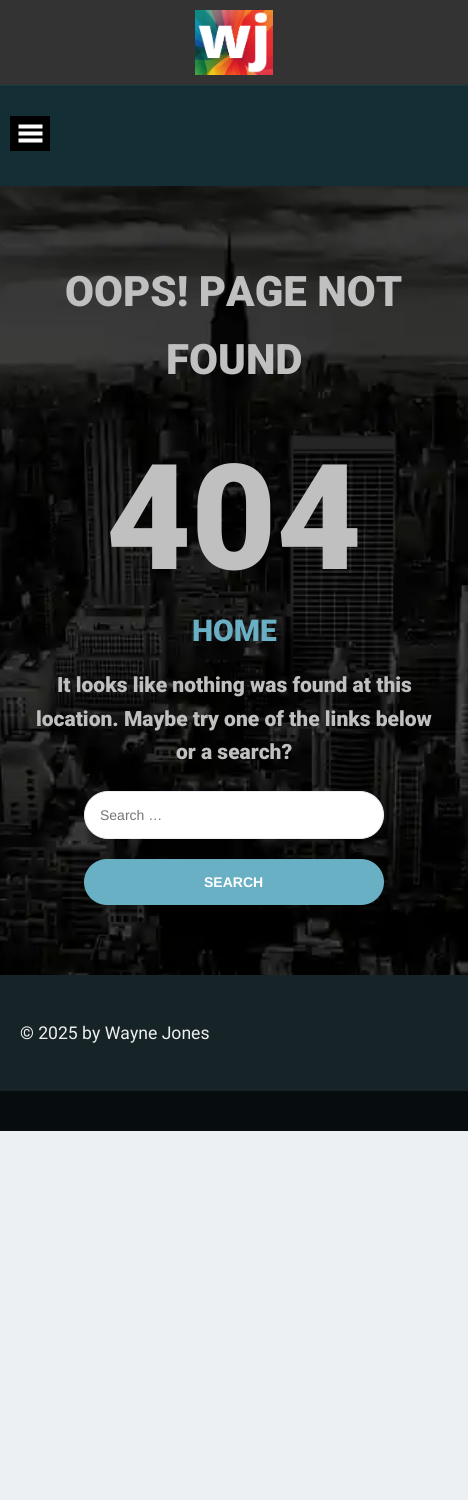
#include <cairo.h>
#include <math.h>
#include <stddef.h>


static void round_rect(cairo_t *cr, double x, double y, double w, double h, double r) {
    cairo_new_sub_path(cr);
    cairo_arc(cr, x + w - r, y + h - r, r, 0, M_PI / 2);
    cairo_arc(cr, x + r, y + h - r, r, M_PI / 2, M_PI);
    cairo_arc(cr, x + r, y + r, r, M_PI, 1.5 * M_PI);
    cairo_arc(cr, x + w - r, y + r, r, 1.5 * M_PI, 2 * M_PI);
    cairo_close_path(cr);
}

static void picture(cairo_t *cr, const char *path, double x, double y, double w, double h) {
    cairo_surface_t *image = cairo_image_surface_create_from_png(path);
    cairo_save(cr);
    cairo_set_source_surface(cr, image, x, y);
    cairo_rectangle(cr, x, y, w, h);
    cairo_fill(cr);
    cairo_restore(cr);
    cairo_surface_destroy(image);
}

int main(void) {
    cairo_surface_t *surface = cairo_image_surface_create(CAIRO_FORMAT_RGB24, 468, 1500);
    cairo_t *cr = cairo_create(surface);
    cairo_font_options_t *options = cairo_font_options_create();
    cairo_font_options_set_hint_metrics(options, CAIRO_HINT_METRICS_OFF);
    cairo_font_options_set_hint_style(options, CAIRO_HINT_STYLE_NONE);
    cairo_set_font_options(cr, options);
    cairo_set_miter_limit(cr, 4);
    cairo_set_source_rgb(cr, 0.925, 0.941, 0.953);
    cairo_paint(cr);
    cairo_set_source_rgb(cr, 0.2, 0.2, 0.2);
    cairo_rectangle(cr, 0, 0, 468, 85);
    cairo_fill(cr);
    picture(cr, "img1.png", 195, 10, 78, 65);
    cairo_set_source_rgb(cr, 0.075, 0.184, 0.208);
    cairo_rectangle(cr, 0, 86, 468, 100);
    cairo_fill(cr);
    cairo_set_source_rgb(cr, 0.086, 0.22, 0.247);
    cairo_rectangle(cr, 0, 85, 468, 1);
    cairo_fill(cr);
    picture(cr, "img2.png", 10, 116, 40, 35);
    picture(cr, "img3.png", 0, 186, 468, 789);
    cairo_select_font_face(cr, "Roboto Black", CAIRO_FONT_SLANT_NORMAL, CAIRO_FONT_WEIGHT_NORMAL);
    cairo_set_font_size(cr, 42);
    cairo_set_source_rgb(cr, 0.753, 0.753, 0.753);
    cairo_move_to(cr, 65, 306);
    cairo_show_text(cr, "OOPS! PAGE NOT");
    cairo_move_to(cr, 166, 374);
    cairo_show_text(cr, "FOUND");
    cairo_set_font_size(cr, 147);
    cairo_move_to(cr, 106, 569);
    cairo_show_text(cr, "404");
    cairo_set_font_size(cr, 30);
    cairo_set_source_rgb(cr, 0.416, 0.69, 0.769);
    cairo_move_to(cr, 192, 641);
    cairo_show_text(cr, "HOME");
    cairo_set_font_size(cr, 21);
    cairo_set_source_rgb(cr, 0.753, 0.753, 0.753);
    cairo_move_to(cr, 57, 692);
    cairo_show_text(cr, "It looks like nothing was found at this");
    cairo_move_to(cr, 36, 726);
    cairo_show_text(cr, "location. Maybe try one of the links below");
    cairo_move_to(cr, 176, 759);
    cairo_show_text(cr, "or a search?");
    cairo_set_source_rgb(cr, 1, 1, 1);
    round_rect(cr, 84.5, 791.5, 299, 47, 23.5);
    cairo_fill_preserve(cr);
    cairo_set_source_rgb(cr, 0.922, 0.937, 0.949);
    cairo_set_line_width(cr, 1);
    cairo_stroke(cr);
    cairo_select_font_face(cr, "Liberation Sans", CAIRO_FONT_SLANT_NORMAL, CAIRO_FONT_WEIGHT_NORMAL);
    cairo_set_font_size(cr, 14);
    cairo_set_source_rgb(cr, 0.459, 0.459, 0.459);
    cairo_move_to(cr, 100, 820);
    cairo_show_text(cr, "Search …");
    cairo_set_source_rgb(cr, 0.416, 0.69, 0.769);
    round_rect(cr, 84, 859, 300, 46, 23);
    cairo_fill(cr);
    cairo_select_font_face(cr, "Liberation Sans", CAIRO_FONT_SLANT_NORMAL, CAIRO_FONT_WEIGHT_BOLD);
    cairo_set_source_rgb(cr, 1, 1, 1);
    cairo_move_to(cr, 204, 887);
    cairo_show_text(cr, "SEARCH");
    cairo_set_source_rgb(cr, 0.086, 0.141, 0.157);
    cairo_rectangle(cr, 0, 975, 468, 116);
    cairo_fill(cr);
    cairo_select_font_face(cr, "Roboto", CAIRO_FONT_SLANT_NORMAL, CAIRO_FONT_WEIGHT_NORMAL);
    cairo_set_font_size(cr, 17.6);
    cairo_set_source_rgb(cr, 0.933, 0.933, 0.933);
    cairo_move_to(cr, 20, 1039);
    cairo_show_text(cr, "© 2025 by Wayne Jones");
    cairo_set_source_rgb(cr, 0.031, 0.051, 0.059);
    cairo_rectangle(cr, 0, 1091, 468, 40);
    cairo_fill(cr);
    cairo_surface_write_to_png(surface, "page.png");
    cairo_font_options_destroy(options);
    cairo_destroy(cr);
    cairo_surface_destroy(surface);
    return 0;
}
